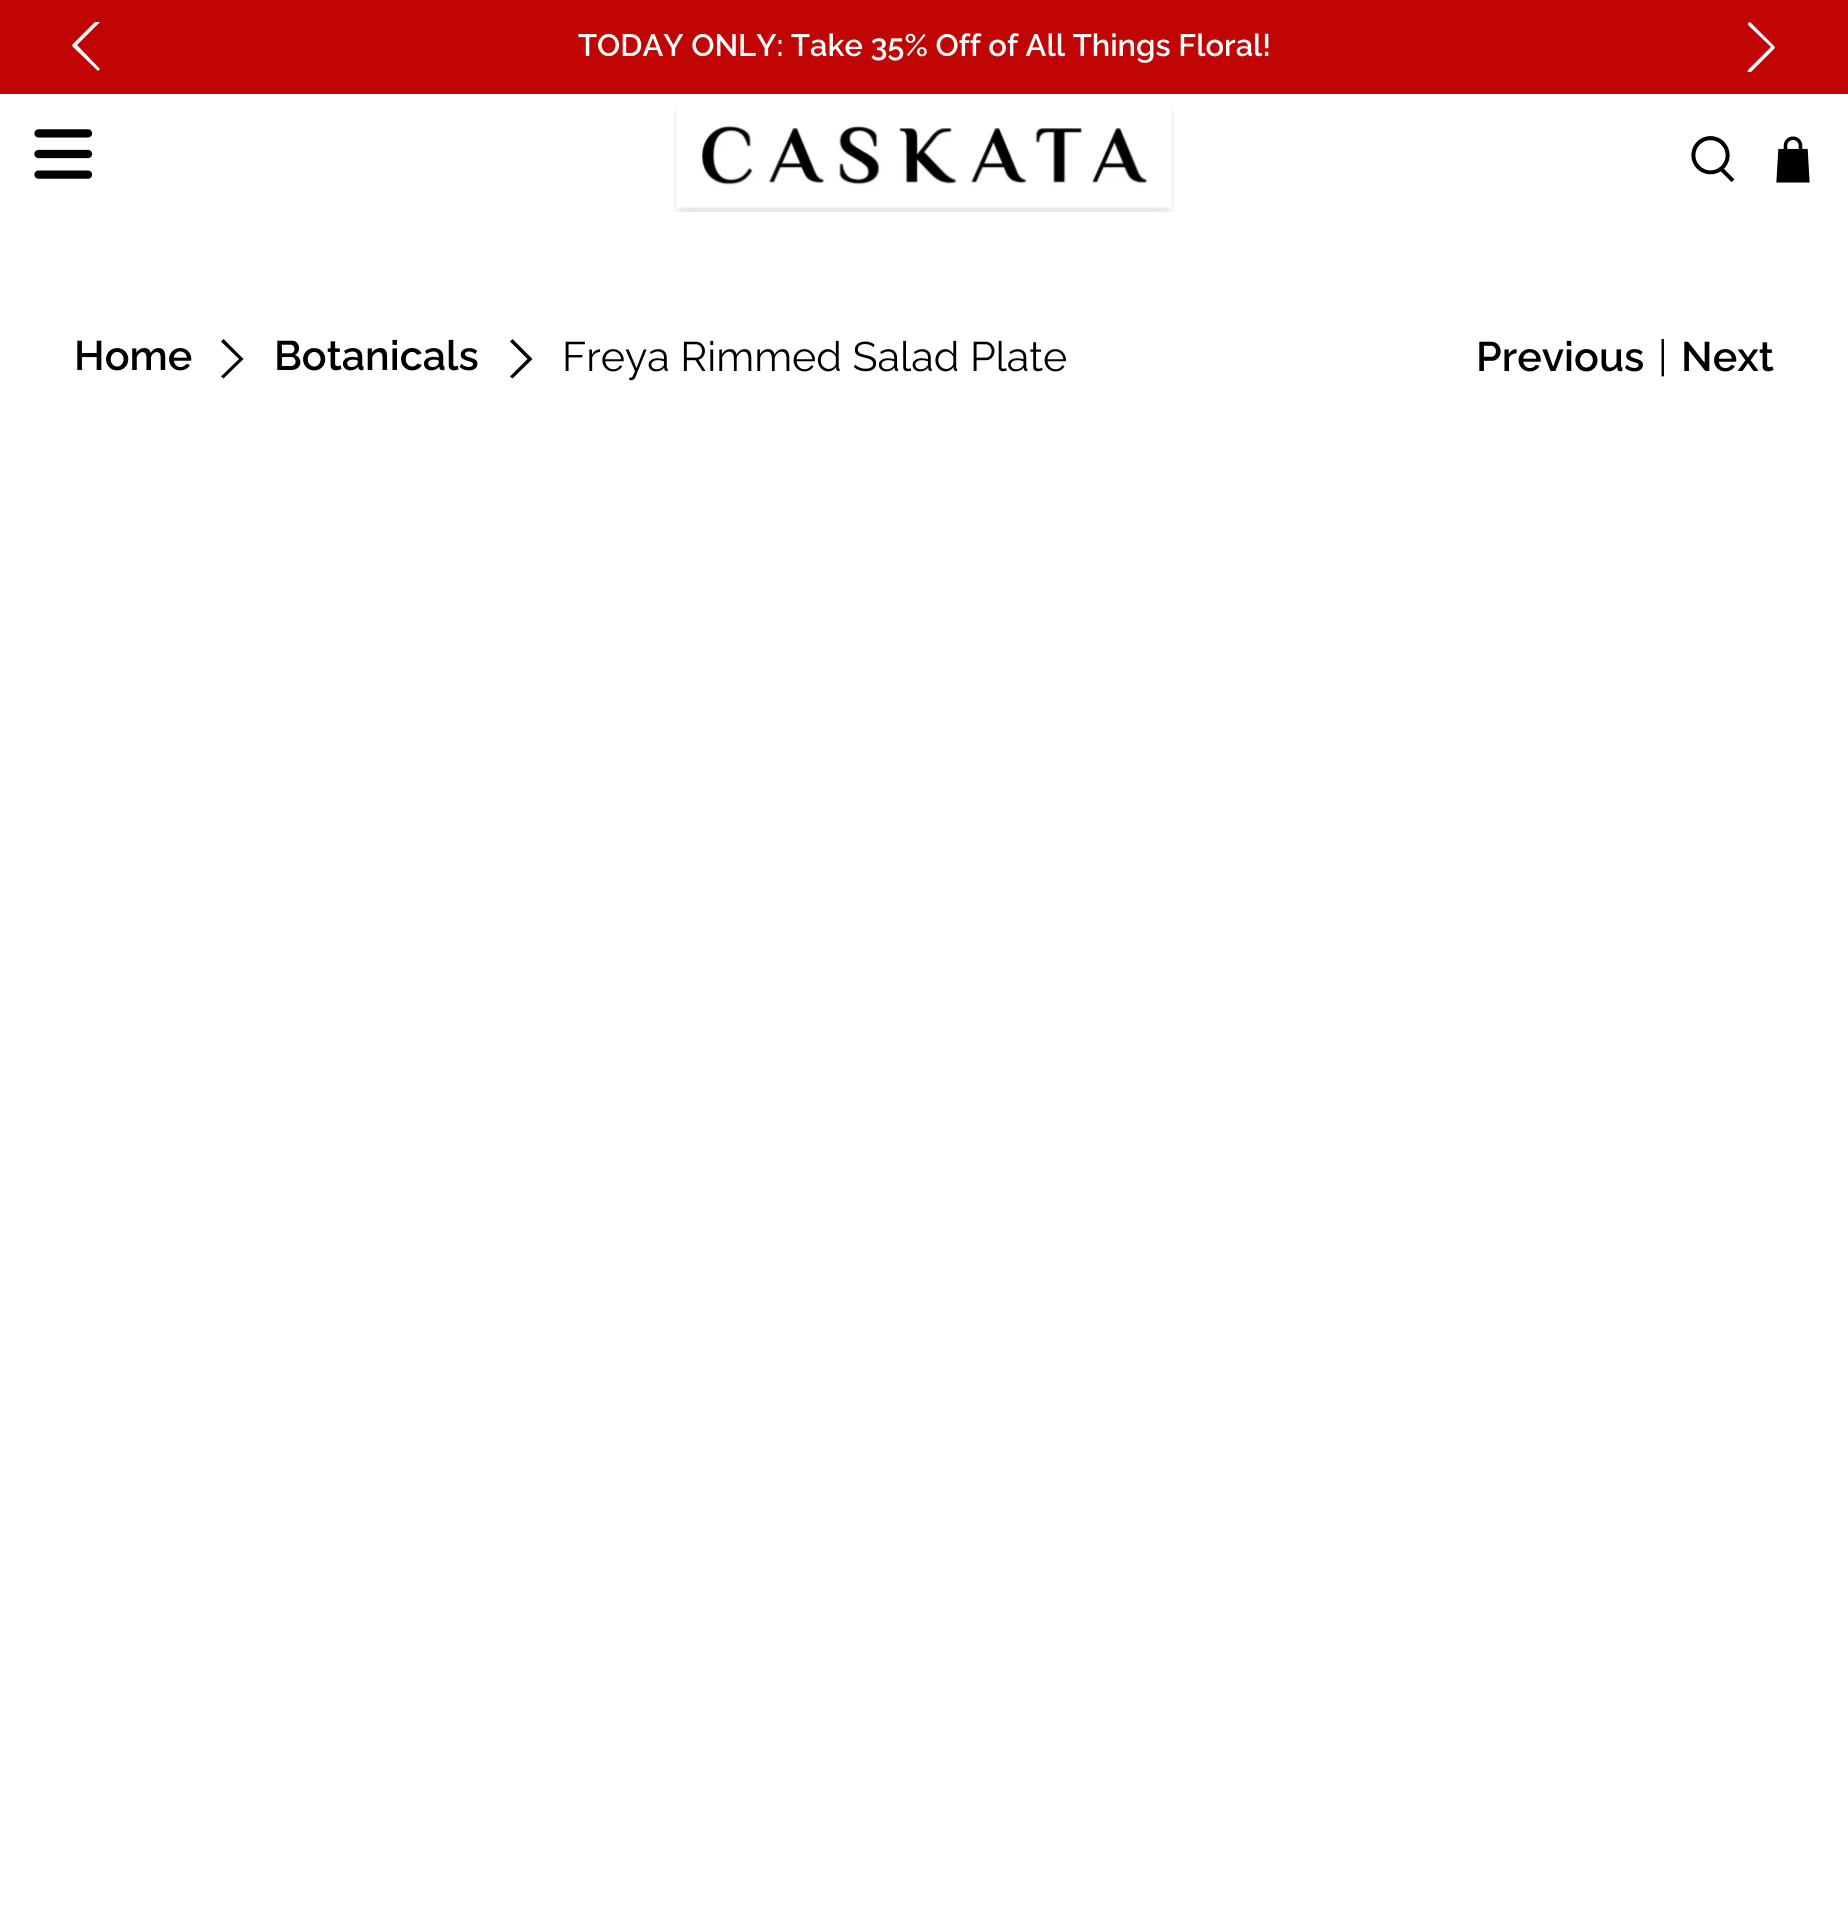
#include <cairo.h>
#include <math.h>
#include <stddef.h>


static void picture(cairo_t *cr, const char *path, double x, double y, double w, double h) {
    cairo_surface_t *image = cairo_image_surface_create_from_png(path);
    cairo_save(cr);
    cairo_set_source_surface(cr, image, x, y);
    cairo_rectangle(cr, x, y, w, h);
    cairo_fill(cr);
    cairo_restore(cr);
    cairo_surface_destroy(image);
}

int main(void) {
    cairo_surface_t *surface = cairo_image_surface_create(CAIRO_FORMAT_RGB24, 1848, 1912);
    cairo_t *cr = cairo_create(surface);
    cairo_font_options_t *options = cairo_font_options_create();
    cairo_font_options_set_hint_metrics(options, CAIRO_HINT_METRICS_OFF);
    cairo_font_options_set_hint_style(options, CAIRO_HINT_STYLE_NONE);
    cairo_set_font_options(cr, options);
    cairo_set_miter_limit(cr, 4);
    cairo_set_source_rgb(cr, 1, 1, 1);
    cairo_paint(cr);
    cairo_set_source_rgb(cr, 0.757, 0.016, 0.016);
    cairo_rectangle(cr, 0, 0, 1848, 94);
    cairo_fill(cr);
    cairo_save(cr);
    cairo_rectangle(cr, 63, 22, 50, 50);
    cairo_clip(cr);
    cairo_set_source_rgb(cr, 1, 1, 1);
    cairo_new_path(cr);
    cairo_move_to(cr, 98, 20);
    cairo_curve_to(cr, 100, 20, 100, 21, 100, 22);
    cairo_line_to(cr, 77, 45);
    cairo_line_to(cr, 99, 68);
    cairo_curve_to(cr, 100, 68, 100, 70, 99, 70);
    cairo_curve_to(cr, 98, 71, 97, 71, 97, 70);
    cairo_line_to(cr, 73, 47);
    cairo_curve_to(cr, 72, 46, 72, 45, 73, 44);
    cairo_line_to(cr, 97, 20);
    cairo_close_path(cr);
    cairo_fill(cr);
    cairo_restore(cr);
    cairo_select_font_face(cr, "Raleway SemiBold", CAIRO_FONT_SLANT_NORMAL, CAIRO_FONT_WEIGHT_NORMAL);
    cairo_set_font_size(cr, 30.9);
    cairo_set_source_rgb(cr, 1, 1, 1);
    cairo_move_to(cr, 578, 56);
    cairo_show_text(cr, "TODAY ONLY: Take 35% Off of All Things Floral!");
    cairo_save(cr);
    cairo_rectangle(cr, 1735, 22, 53, 50);
    cairo_clip(cr);
    cairo_new_path(cr);
    cairo_move_to(cr, 1749, 73);
    cairo_curve_to(cr, 1748, 73, 1747, 72, 1748, 70);
    cairo_line_to(cr, 1771, 47);
    cairo_line_to(cr, 1748, 25);
    cairo_curve_to(cr, 1748, 24, 1748, 23, 1748, 23);
    cairo_curve_to(cr, 1749, 22, 1750, 22, 1751, 23);
    cairo_line_to(cr, 1774, 46);
    cairo_curve_to(cr, 1775, 47, 1775, 48, 1774, 49);
    cairo_line_to(cr, 1750, 73);
    cairo_close_path(cr);
    cairo_fill(cr);
    cairo_restore(cr);
    picture(cr, "img1.png", 34, 129, 59, 50);
    picture(cr, "img2.png", 674, 107, 500, 105);
    picture(cr, "img3.png", 1691, 136, 44, 47);
    picture(cr, "img4.png", 1776, 136, 34, 47);
    cairo_set_font_size(cr, 41.25);
    cairo_set_source_rgb(cr, 0, 0, 0);
    cairo_move_to(cr, 74, 370);
    cairo_show_text(cr, "Home");
    cairo_new_path(cr);
    cairo_move_to(cr, 223.5, 378.5);
    cairo_line_to(cr, 221, 376.5);
    cairo_line_to(cr, 239, 359);
    cairo_line_to(cr, 221, 341.5);
    cairo_line_to(cr, 223.5, 339);
    cairo_line_to(cr, 243.5, 359);
    cairo_close_path(cr);
    cairo_fill(cr);
    cairo_move_to(cr, 274, 370);
    cairo_show_text(cr, "Botanicals");
    cairo_new_path(cr);
    cairo_move_to(cr, 512.5, 378.5);
    cairo_line_to(cr, 510, 376.5);
    cairo_line_to(cr, 527.5, 359);
    cairo_line_to(cr, 510, 341.5);
    cairo_line_to(cr, 512.5, 339);
    cairo_line_to(cr, 532.5, 359);
    cairo_close_path(cr);
    cairo_fill(cr);
    cairo_select_font_face(cr, "Raleway", CAIRO_FONT_SLANT_NORMAL, CAIRO_FONT_WEIGHT_NORMAL);
    cairo_move_to(cr, 562, 371);
    cairo_show_text(cr, "Freya Rimmed Salad Plate");
    cairo_select_font_face(cr, "Raleway SemiBold", CAIRO_FONT_SLANT_NORMAL, CAIRO_FONT_WEIGHT_NORMAL);
    cairo_move_to(cr, 1476, 371);
    cairo_show_text(cr, "Previous");
    cairo_select_font_face(cr, "Raleway", CAIRO_FONT_SLANT_NORMAL, CAIRO_FONT_WEIGHT_NORMAL);
    cairo_move_to(cr, 1658, 371);
    cairo_show_text(cr, "|");
    cairo_select_font_face(cr, "Raleway SemiBold", CAIRO_FONT_SLANT_NORMAL, CAIRO_FONT_WEIGHT_NORMAL);
    cairo_move_to(cr, 1681, 371);
    cairo_show_text(cr, "Next");
    cairo_surface_write_to_png(surface, "page.png");
    cairo_font_options_destroy(options);
    cairo_destroy(cr);
    cairo_surface_destroy(surface);
    return 0;
}
